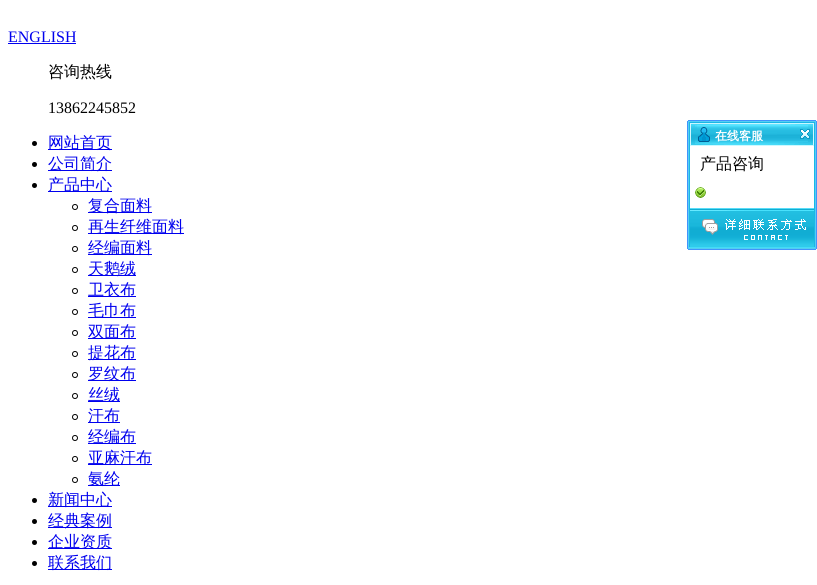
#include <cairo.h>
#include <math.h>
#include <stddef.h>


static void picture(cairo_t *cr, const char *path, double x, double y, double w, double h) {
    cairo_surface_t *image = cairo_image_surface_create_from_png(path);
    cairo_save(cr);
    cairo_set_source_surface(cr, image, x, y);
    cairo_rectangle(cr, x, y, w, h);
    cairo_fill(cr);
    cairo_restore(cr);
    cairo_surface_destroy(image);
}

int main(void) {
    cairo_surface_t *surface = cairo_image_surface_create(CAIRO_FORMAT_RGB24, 817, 585);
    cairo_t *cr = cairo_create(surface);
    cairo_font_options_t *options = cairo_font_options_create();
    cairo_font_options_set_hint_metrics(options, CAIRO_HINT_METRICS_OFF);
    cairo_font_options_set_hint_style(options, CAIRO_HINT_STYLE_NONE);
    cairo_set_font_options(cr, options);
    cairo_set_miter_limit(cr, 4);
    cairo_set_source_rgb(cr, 1, 1, 1);
    cairo_paint(cr);
    cairo_select_font_face(cr, "Liberation Serif", CAIRO_FONT_SLANT_NORMAL, CAIRO_FONT_WEIGHT_NORMAL);
    cairo_set_font_size(cr, 16);
    cairo_set_source_rgb(cr, 0, 0, 0.933);
    cairo_move_to(cr, 8, 42);
    cairo_show_text(cr, "ENGLISH");
    cairo_rectangle(cr, 8, 43, 68, 1);
    cairo_fill(cr);
    cairo_select_font_face(cr, "WenQuanYi Zen Hei Medium", CAIRO_FONT_SLANT_NORMAL, CAIRO_FONT_WEIGHT_NORMAL);
    cairo_set_source_rgb(cr, 0, 0, 0);
    cairo_move_to(cr, 48, 77);
    cairo_show_text(cr, "咨询热线");
    cairo_select_font_face(cr, "Liberation Serif", CAIRO_FONT_SLANT_NORMAL, CAIRO_FONT_WEIGHT_NORMAL);
    cairo_move_to(cr, 48, 113);
    cairo_show_text(cr, "13862245852");
    cairo_new_path(cr);
    cairo_arc(cr, 34.5, 143.5, 2.5, 0, 2 * M_PI);
    cairo_fill(cr);
    cairo_set_source_rgb(cr, 0, 0, 0.933);
    cairo_rectangle(cr, 48, 149, 64, 1);
    cairo_fill(cr);
    cairo_select_font_face(cr, "WenQuanYi Zen Hei Medium", CAIRO_FONT_SLANT_NORMAL, CAIRO_FONT_WEIGHT_NORMAL);
    cairo_move_to(cr, 48, 148);
    cairo_show_text(cr, "网站首页");
    cairo_set_source_rgb(cr, 0, 0, 0);
    cairo_new_path(cr);
    cairo_arc(cr, 34.5, 164.5, 2.5, 0, 2 * M_PI);
    cairo_fill(cr);
    cairo_set_source_rgb(cr, 0, 0, 0.933);
    cairo_rectangle(cr, 48, 170, 64, 1);
    cairo_fill(cr);
    cairo_move_to(cr, 48, 169);
    cairo_show_text(cr, "公司简介");
    cairo_set_source_rgb(cr, 0, 0, 0);
    cairo_new_path(cr);
    cairo_arc(cr, 34.5, 185.5, 2.5, 0, 2 * M_PI);
    cairo_fill(cr);
    cairo_set_source_rgb(cr, 0, 0, 0.933);
    cairo_rectangle(cr, 48, 191, 64, 1);
    cairo_fill(cr);
    cairo_move_to(cr, 48, 190);
    cairo_show_text(cr, "产品中心");
    cairo_new_path(cr);
    cairo_arc(cr, 75, 207, 2.5, 0, 2 * M_PI);
    cairo_set_source_rgb(cr, 0, 0, 0);
    cairo_set_line_width(cr, 1);
    cairo_stroke(cr);
    cairo_set_source_rgb(cr, 0, 0, 0.933);
    cairo_rectangle(cr, 88, 212, 64, 1);
    cairo_fill(cr);
    cairo_move_to(cr, 88, 211);
    cairo_show_text(cr, "复合面料");
    cairo_new_path(cr);
    cairo_arc(cr, 75, 228, 2.5, 0, 2 * M_PI);
    cairo_set_source_rgb(cr, 0, 0, 0);
    cairo_stroke(cr);
    cairo_set_source_rgb(cr, 0, 0, 0.933);
    cairo_rectangle(cr, 88, 233, 96, 1);
    cairo_fill(cr);
    cairo_move_to(cr, 88, 232);
    cairo_show_text(cr, "再生纤维面料");
    cairo_new_path(cr);
    cairo_arc(cr, 75, 249, 2.5, 0, 2 * M_PI);
    cairo_set_source_rgb(cr, 0, 0, 0);
    cairo_stroke(cr);
    cairo_set_source_rgb(cr, 0, 0, 0.933);
    cairo_rectangle(cr, 88, 254, 64, 1);
    cairo_fill(cr);
    cairo_move_to(cr, 88, 253);
    cairo_show_text(cr, "经编面料");
    cairo_new_path(cr);
    cairo_arc(cr, 75, 270, 2.5, 0, 2 * M_PI);
    cairo_set_source_rgb(cr, 0, 0, 0);
    cairo_stroke(cr);
    cairo_set_source_rgb(cr, 0, 0, 0.933);
    cairo_rectangle(cr, 88, 275, 48, 1);
    cairo_fill(cr);
    cairo_move_to(cr, 88, 274);
    cairo_show_text(cr, "天鹅绒");
    cairo_new_path(cr);
    cairo_arc(cr, 75, 291, 2.5, 0, 2 * M_PI);
    cairo_set_source_rgb(cr, 0, 0, 0);
    cairo_stroke(cr);
    cairo_set_source_rgb(cr, 0, 0, 0.933);
    cairo_rectangle(cr, 88, 296, 48, 1);
    cairo_fill(cr);
    cairo_move_to(cr, 88, 295);
    cairo_show_text(cr, "卫衣布");
    cairo_new_path(cr);
    cairo_arc(cr, 75, 312, 2.5, 0, 2 * M_PI);
    cairo_set_source_rgb(cr, 0, 0, 0);
    cairo_stroke(cr);
    cairo_set_source_rgb(cr, 0, 0, 0.933);
    cairo_rectangle(cr, 88, 317, 48, 1);
    cairo_fill(cr);
    cairo_move_to(cr, 88, 316);
    cairo_show_text(cr, "毛巾布");
    cairo_new_path(cr);
    cairo_arc(cr, 75, 333, 2.5, 0, 2 * M_PI);
    cairo_set_source_rgb(cr, 0, 0, 0);
    cairo_stroke(cr);
    cairo_set_source_rgb(cr, 0, 0, 0.933);
    cairo_rectangle(cr, 88, 338, 48, 1);
    cairo_fill(cr);
    cairo_move_to(cr, 88, 337);
    cairo_show_text(cr, "双面布");
    cairo_new_path(cr);
    cairo_arc(cr, 75, 354, 2.5, 0, 2 * M_PI);
    cairo_set_source_rgb(cr, 0, 0, 0);
    cairo_stroke(cr);
    cairo_set_source_rgb(cr, 0, 0, 0.933);
    cairo_rectangle(cr, 88, 359, 48, 1);
    cairo_fill(cr);
    cairo_move_to(cr, 88, 358);
    cairo_show_text(cr, "提花布");
    cairo_new_path(cr);
    cairo_arc(cr, 75, 375, 2.5, 0, 2 * M_PI);
    cairo_set_source_rgb(cr, 0, 0, 0);
    cairo_stroke(cr);
    cairo_set_source_rgb(cr, 0, 0, 0.933);
    cairo_rectangle(cr, 88, 380, 48, 1);
    cairo_fill(cr);
    cairo_move_to(cr, 88, 379);
    cairo_show_text(cr, "罗纹布");
    cairo_new_path(cr);
    cairo_arc(cr, 75, 396, 2.5, 0, 2 * M_PI);
    cairo_set_source_rgb(cr, 0, 0, 0);
    cairo_stroke(cr);
    cairo_set_source_rgb(cr, 0, 0, 0.933);
    cairo_rectangle(cr, 88, 401, 32, 1);
    cairo_fill(cr);
    cairo_move_to(cr, 88, 400);
    cairo_show_text(cr, "丝绒");
    cairo_new_path(cr);
    cairo_arc(cr, 75, 417, 2.5, 0, 2 * M_PI);
    cairo_set_source_rgb(cr, 0, 0, 0);
    cairo_stroke(cr);
    cairo_set_source_rgb(cr, 0, 0, 0.933);
    cairo_rectangle(cr, 88, 422, 32, 1);
    cairo_fill(cr);
    cairo_move_to(cr, 88, 421);
    cairo_show_text(cr, "汗布");
    cairo_new_path(cr);
    cairo_arc(cr, 75, 438, 2.5, 0, 2 * M_PI);
    cairo_set_source_rgb(cr, 0, 0, 0);
    cairo_stroke(cr);
    cairo_set_source_rgb(cr, 0, 0, 0.933);
    cairo_rectangle(cr, 88, 443, 48, 1);
    cairo_fill(cr);
    cairo_move_to(cr, 88, 442);
    cairo_show_text(cr, "经编布");
    cairo_new_path(cr);
    cairo_arc(cr, 75, 459, 2.5, 0, 2 * M_PI);
    cairo_set_source_rgb(cr, 0, 0, 0);
    cairo_stroke(cr);
    cairo_set_source_rgb(cr, 0, 0, 0.933);
    cairo_rectangle(cr, 88, 464, 64, 1);
    cairo_fill(cr);
    cairo_move_to(cr, 88, 463);
    cairo_show_text(cr, "亚麻汗布");
    cairo_new_path(cr);
    cairo_arc(cr, 75, 480, 2.5, 0, 2 * M_PI);
    cairo_set_source_rgb(cr, 0, 0, 0);
    cairo_stroke(cr);
    cairo_set_source_rgb(cr, 0, 0, 0.933);
    cairo_rectangle(cr, 88, 485, 32, 1);
    cairo_fill(cr);
    cairo_move_to(cr, 88, 484);
    cairo_show_text(cr, "氨纶");
    cairo_set_source_rgb(cr, 0, 0, 0);
    cairo_new_path(cr);
    cairo_arc(cr, 34.5, 500.5, 2.5, 0, 2 * M_PI);
    cairo_fill(cr);
    cairo_set_source_rgb(cr, 0, 0, 0.933);
    cairo_rectangle(cr, 48, 506, 64, 1);
    cairo_fill(cr);
    cairo_move_to(cr, 48, 505);
    cairo_show_text(cr, "新闻中心");
    cairo_set_source_rgb(cr, 0, 0, 0);
    cairo_new_path(cr);
    cairo_arc(cr, 34.5, 521.5, 2.5, 0, 2 * M_PI);
    cairo_fill(cr);
    cairo_set_source_rgb(cr, 0, 0, 0.933);
    cairo_rectangle(cr, 48, 527, 64, 1);
    cairo_fill(cr);
    cairo_move_to(cr, 48, 526);
    cairo_show_text(cr, "经典案例");
    cairo_set_source_rgb(cr, 0, 0, 0);
    cairo_new_path(cr);
    cairo_arc(cr, 34.5, 542.5, 2.5, 0, 2 * M_PI);
    cairo_fill(cr);
    cairo_set_source_rgb(cr, 0, 0, 0.933);
    cairo_rectangle(cr, 48, 548, 64, 1);
    cairo_fill(cr);
    cairo_move_to(cr, 48, 547);
    cairo_show_text(cr, "企业资质");
    cairo_set_source_rgb(cr, 0, 0, 0);
    cairo_new_path(cr);
    cairo_arc(cr, 34.5, 563.5, 2.5, 0, 2 * M_PI);
    cairo_fill(cr);
    cairo_set_source_rgb(cr, 0, 0, 0.933);
    cairo_rectangle(cr, 48, 569, 64, 1);
    cairo_fill(cr);
    cairo_move_to(cr, 48, 568);
    cairo_show_text(cr, "联系我们");
    picture(cr, "img1.png", 687, 120, 130, 26);
    cairo_select_font_face(cr, "WenQuanYi Zen Hei", CAIRO_FONT_SLANT_NORMAL, CAIRO_FONT_WEIGHT_BOLD);
    cairo_set_font_size(cr, 12);
    cairo_set_source_rgb(cr, 1, 1, 1);
    cairo_move_to(cr, 715, 140);
    cairo_show_text(cr, "在线客服");
    picture(cr, "img2.png", 800, 129, 10, 10);
    picture(cr, "img3.png", 687, 146, 130, 3);
    picture(cr, "img4.png", 687, 149, 130, 56);
    cairo_select_font_face(cr, "WenQuanYi Zen Hei Medium", CAIRO_FONT_SLANT_NORMAL, CAIRO_FONT_WEIGHT_NORMAL);
    cairo_set_font_size(cr, 16);
    cairo_set_source_rgb(cr, 0, 0, 0);
    cairo_move_to(cr, 700, 169);
    cairo_show_text(cr, "产品咨询");
    picture(cr, "img5.png", 695, 187, 11, 11);
    picture(cr, "img3.png", 687, 205, 130, 3);
    picture(cr, "img6.png", 687, 208, 130, 42);
    cairo_surface_write_to_png(surface, "page.png");
    cairo_font_options_destroy(options);
    cairo_destroy(cr);
    cairo_surface_destroy(surface);
    return 0;
}
